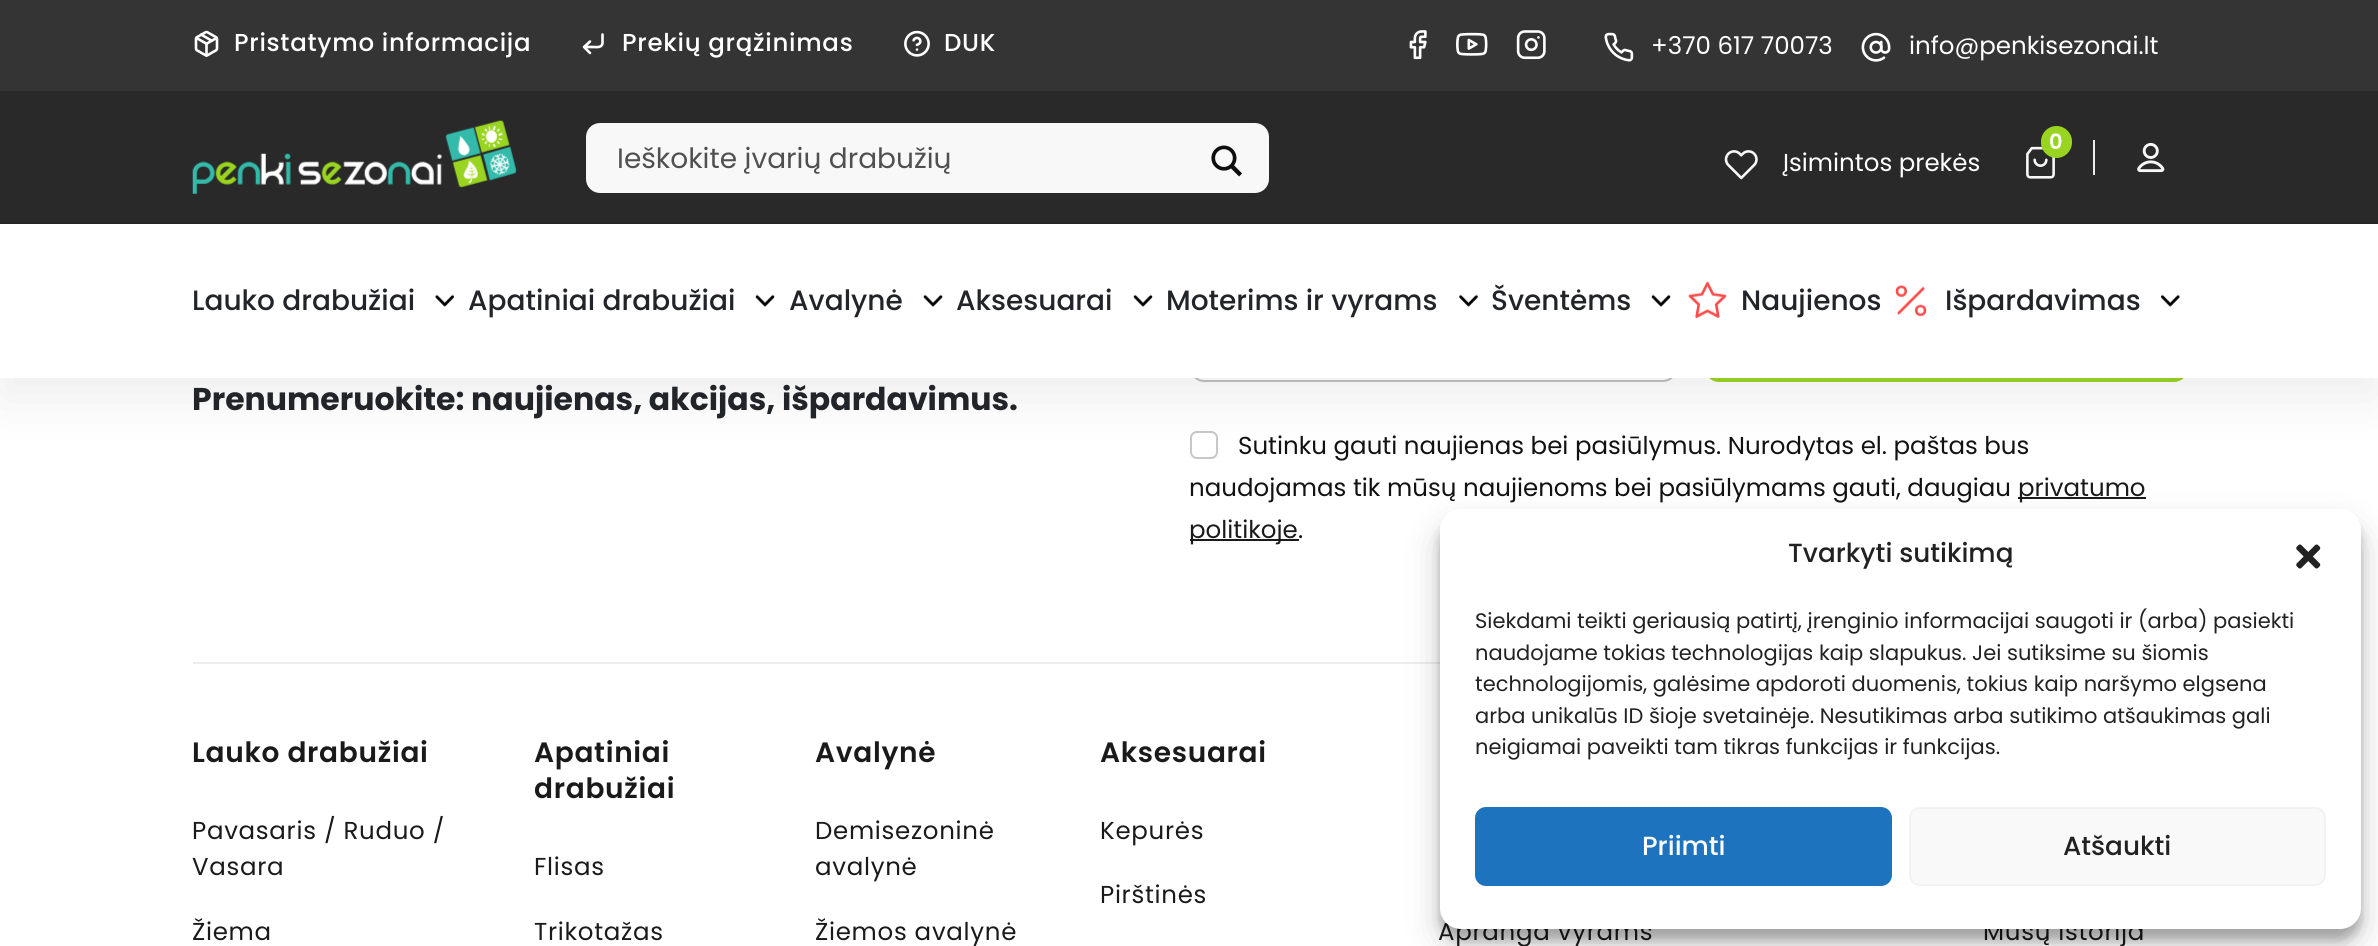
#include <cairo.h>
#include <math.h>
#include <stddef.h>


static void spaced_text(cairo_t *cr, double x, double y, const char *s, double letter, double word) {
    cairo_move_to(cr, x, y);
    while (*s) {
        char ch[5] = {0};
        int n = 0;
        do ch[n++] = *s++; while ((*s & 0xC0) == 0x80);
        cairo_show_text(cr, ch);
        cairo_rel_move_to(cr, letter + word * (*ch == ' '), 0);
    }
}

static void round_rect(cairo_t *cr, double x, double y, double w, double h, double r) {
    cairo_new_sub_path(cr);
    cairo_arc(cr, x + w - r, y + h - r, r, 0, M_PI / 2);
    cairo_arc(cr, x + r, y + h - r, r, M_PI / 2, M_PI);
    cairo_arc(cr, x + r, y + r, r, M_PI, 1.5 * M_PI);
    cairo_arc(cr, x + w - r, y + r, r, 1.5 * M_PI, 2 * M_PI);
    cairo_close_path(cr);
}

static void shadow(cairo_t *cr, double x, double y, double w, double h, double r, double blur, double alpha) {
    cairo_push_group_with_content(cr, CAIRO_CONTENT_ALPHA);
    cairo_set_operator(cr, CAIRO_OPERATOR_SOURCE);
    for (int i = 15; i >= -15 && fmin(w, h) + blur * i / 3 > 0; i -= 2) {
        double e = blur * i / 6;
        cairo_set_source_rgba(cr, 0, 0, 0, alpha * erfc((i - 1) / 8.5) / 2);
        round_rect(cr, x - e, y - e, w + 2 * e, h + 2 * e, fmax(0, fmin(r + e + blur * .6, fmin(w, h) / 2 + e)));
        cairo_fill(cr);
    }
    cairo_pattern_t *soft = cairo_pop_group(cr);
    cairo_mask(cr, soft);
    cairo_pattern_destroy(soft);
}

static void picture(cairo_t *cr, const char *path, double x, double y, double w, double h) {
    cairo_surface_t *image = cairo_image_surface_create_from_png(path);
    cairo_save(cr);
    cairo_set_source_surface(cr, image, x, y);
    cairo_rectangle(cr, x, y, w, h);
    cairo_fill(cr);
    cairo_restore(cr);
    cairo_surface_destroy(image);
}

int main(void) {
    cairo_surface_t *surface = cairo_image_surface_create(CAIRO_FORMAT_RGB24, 2378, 946);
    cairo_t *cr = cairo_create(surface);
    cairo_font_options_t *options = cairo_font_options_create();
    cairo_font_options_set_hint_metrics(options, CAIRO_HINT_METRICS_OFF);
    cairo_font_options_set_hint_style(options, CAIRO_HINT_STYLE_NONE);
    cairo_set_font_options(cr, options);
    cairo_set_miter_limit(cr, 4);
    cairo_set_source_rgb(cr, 1, 1, 1);
    cairo_paint(cr);
    round_rect(cr, 1191, 299, 485, 82, 13);
    cairo_set_source_rgb(cr, 0.753, 0.753, 0.753);
    cairo_stroke(cr);
    cairo_set_source_rgb(cr, 0.6, 0.831, 0.125);
    round_rect(cr, 1705, 298, 483, 84, 14);
    cairo_fill(cr);
    round_rect(cr, 1191, 432, 26, 26, 6);
    cairo_set_source_rgb(cr, 0.78, 0.78, 0.78);
    cairo_stroke(cr);
    cairo_set_source_rgb(cr, 0.106, 0.114, 0.2);
    shadow(cr, 0, 21, 2378, 378, 0, 28, 0.08);
    cairo_set_source_rgb(cr, 1, 1, 1);
    cairo_rectangle(cr, 0, 224, 2378, 154);
    cairo_fill(cr);
    cairo_set_source_rgb(cr, 0.204, 0.204, 0.204);
    cairo_rectangle(cr, 0, 0, 2378, 91);
    cairo_fill(cr);
    picture(cr, "img1.png", 194, 30, 25, 27);
    cairo_select_font_face(cr, "Poppins Medium", CAIRO_FONT_SLANT_NORMAL, CAIRO_FONT_WEIGHT_NORMAL);
    cairo_set_font_size(cr, 24.5);
    cairo_set_source_rgb(cr, 1, 1, 1);
    spaced_text(cr, 234, 51, "Pristatymo informacija", 0.7, 0);
    cairo_new_path(cr);
    cairo_move_to(cr, 590, 41.5);
    cairo_line_to(cr, 584, 47);
    cairo_line_to(cr, 590, 53);
    cairo_move_to(cr, 602.5, 34.5);
    cairo_line_to(cr, 602.5, 43.5);
    cairo_curve_to(cr, 601.5, 48, 596.5, 47, 593.5, 47);
    cairo_line_to(cr, 584, 47);
    cairo_set_line_width(cr, 2.6);
    cairo_set_line_cap(cr, CAIRO_LINE_CAP_ROUND);
    cairo_set_line_join(cr, CAIRO_LINE_JOIN_ROUND);
    cairo_stroke(cr);
    spaced_text(cr, 622, 51, "Prekių grąžinimas", 0.7, 0);
    picture(cr, "img2.png", 904, 30, 26, 27);
    spaced_text(cr, 944, 51, "DUK", 0.7, 0);
    picture(cr, "img3.png", 1409, 30, 18, 30);
    picture(cr, "img4.png", 1456, 32, 32, 24);
    picture(cr, "img5.png", 1516, 30, 30, 30);
    picture(cr, "img6.png", 1604, 32, 30, 30);
    cairo_select_font_face(cr, "Poppins", CAIRO_FONT_SLANT_NORMAL, CAIRO_FONT_WEIGHT_NORMAL);
    cairo_move_to(cr, 1651, 54);
    cairo_show_text(cr, "+370 617 70073");
    picture(cr, "img7.png", 1861, 32, 30, 30);
    cairo_move_to(cr, 1909, 54);
    cairo_show_text(cr, "info@penkisezonai.lt");
    cairo_set_source_rgb(cr, 0.161, 0.161, 0.161);
    cairo_rectangle(cr, 0, 91, 2378, 131);
    cairo_fill(cr);
    cairo_set_source_rgb(cr, 0.145, 0.145, 0.145);
    cairo_rectangle(cr, 0, 222, 2378, 2);
    cairo_fill(cr);
    picture(cr, "img8.png", 192, 120, 325, 74);
    cairo_set_source_rgb(cr, 0.969, 0.969, 0.969);
    round_rect(cr, 586, 123, 683, 70, 14);
    cairo_fill(cr);
    cairo_set_font_size(cr, 28);
    cairo_set_source_rgb(cr, 0.314, 0.314, 0.314);
    cairo_move_to(cr, 617, 168);
    cairo_show_text(cr, "Ieškokite įvarių drabužių");
    picture(cr, "img9.png", 1211, 145, 31, 32);
    picture(cr, "img10.png", 1724, 150, 34, 30);
    cairo_set_font_size(cr, 24.5);
    cairo_set_source_rgb(cr, 1, 1, 1);
    cairo_move_to(cr, 1783, 171);
    cairo_show_text(cr, "Įsimintos prekės");
    picture(cr, "img11.png", 2026, 146, 29, 33);
    cairo_set_source_rgb(cr, 0.6, 0.831, 0.125);
    round_rect(cr, 2041, 126, 31, 32, 15.5);
    cairo_fill(cr);
    cairo_select_font_face(cr, "Poppins SemiBold", CAIRO_FONT_SLANT_NORMAL, CAIRO_FONT_WEIGHT_NORMAL);
    cairo_set_font_size(cr, 21);
    cairo_set_source_rgb(cr, 1, 1, 1);
    cairo_move_to(cr, 2049, 149);
    cairo_show_text(cr, "0");
    cairo_set_source_rgb(cr, 0.918, 0.918, 0.918);
    cairo_rectangle(cr, 2093, 140, 2, 35);
    cairo_fill(cr);
    picture(cr, "img12.png", 2137, 142, 28, 31);
    cairo_select_font_face(cr, "Poppins Medium", CAIRO_FONT_SLANT_NORMAL, CAIRO_FONT_WEIGHT_NORMAL);
    cairo_set_font_size(cr, 28);
    cairo_set_source_rgb(cr, 0.129, 0.145, 0.161);
    cairo_move_to(cr, 192, 310);
    cairo_show_text(cr, "Lauko drabužiai");
    picture(cr, "img13.png", 435, 294, 19, 13);
    cairo_move_to(cr, 468, 310);
    cairo_show_text(cr, "Apatiniai drabužiai");
    picture(cr, "img14.png", 755, 294, 20, 13);
    cairo_move_to(cr, 789, 310);
    cairo_show_text(cr, "Avalynė");
    picture(cr, "img15.png", 923, 294, 20, 13);
    cairo_move_to(cr, 956, 310);
    cairo_show_text(cr, "Aksesuarai");
    picture(cr, "img14.png", 1133, 294, 20, 13);
    cairo_move_to(cr, 1166, 310);
    cairo_show_text(cr, "Moterims ir vyrams");
    picture(cr, "img16.png", 1459, 294, 19, 13);
    cairo_move_to(cr, 1491, 310);
    cairo_show_text(cr, "Šventėms");
    picture(cr, "img14.png", 1651, 294, 20, 13);
    picture(cr, "img17.png", 1688, 281, 39, 38);
    cairo_move_to(cr, 1741, 310);
    cairo_show_text(cr, "Naujienos");
    picture(cr, "img18.png", 1895, 284, 32, 33);
    cairo_move_to(cr, 1945, 310);
    cairo_show_text(cr, "Išpardavimas");
    picture(cr, "img19.png", 2161, 294, 19, 13);
    cairo_set_source_rgb(cr, 0.929, 0.929, 0.929);
    cairo_rectangle(cr, 193, 662, 1247, 2);
    cairo_fill(cr);
    cairo_select_font_face(cr, "Poppins", CAIRO_FONT_SLANT_NORMAL, CAIRO_FONT_WEIGHT_BOLD);
    cairo_set_font_size(cr, 31.5);
    cairo_set_source_rgb(cr, 0.129, 0.145, 0.161);
    cairo_move_to(cr, 192, 410);
    cairo_show_text(cr, "Prenumeruokite: naujienas, akcijas, išpardavimus.");
    cairo_select_font_face(cr, "Poppins", CAIRO_FONT_SLANT_NORMAL, CAIRO_FONT_WEIGHT_NORMAL);
    cairo_set_font_size(cr, 24.5);
    cairo_set_source_rgb(cr, 0.071, 0.071, 0.071);
    cairo_move_to(cr, 1238, 454);
    cairo_show_text(cr, "Sutinku gauti naujienas bei pasiūlymus. Nurodytas el. paštas bus");
    cairo_move_to(cr, 1189, 496);
    cairo_show_text(cr, "naudojamas tik mūsų naujienoms bei pasiūlymams gauti, daugiau");
    cairo_set_source_rgb(cr, 0.102, 0.102, 0.102);
    cairo_rectangle(cr, 2018, 497, 128, 2);
    cairo_fill(cr);
    cairo_move_to(cr, 2018, 496);
    cairo_show_text(cr, "privatumo");
    cairo_rectangle(cr, 1190, 539, 109, 2);
    cairo_fill(cr);
    cairo_move_to(cr, 1189, 538);
    cairo_show_text(cr, "politikoje");
    cairo_set_source_rgb(cr, 0.071, 0.071, 0.071);
    cairo_move_to(cr, 1298, 538);
    cairo_show_text(cr, ".");
    cairo_select_font_face(cr, "Poppins SemiBold", CAIRO_FONT_SLANT_NORMAL, CAIRO_FONT_WEIGHT_NORMAL);
    cairo_set_font_size(cr, 28);
    cairo_set_source_rgb(cr, 0.102, 0.102, 0.102);
    spaced_text(cr, 192, 762, "Lauko drabužiai", 0.7, 0);
    cairo_select_font_face(cr, "Poppins", CAIRO_FONT_SLANT_NORMAL, CAIRO_FONT_WEIGHT_NORMAL);
    cairo_set_font_size(cr, 24.5);
    spaced_text(cr, 192, 839, "Pavasaris / Ruduo /", 0.7, 0);
    spaced_text(cr, 192, 875, "Vasara", 0.7, 0);
    spaced_text(cr, 192, 940, "Žiema", 0.7, 0);
    cairo_select_font_face(cr, "Poppins SemiBold", CAIRO_FONT_SLANT_NORMAL, CAIRO_FONT_WEIGHT_NORMAL);
    cairo_set_font_size(cr, 28);
    spaced_text(cr, 534, 762, "Apatiniai", 0.7, 0);
    spaced_text(cr, 534, 798, "drabužiai", 0.7, 0);
    cairo_select_font_face(cr, "Poppins", CAIRO_FONT_SLANT_NORMAL, CAIRO_FONT_WEIGHT_NORMAL);
    cairo_set_font_size(cr, 24.5);
    spaced_text(cr, 534, 875, "Flisas", 0.7, 0);
    spaced_text(cr, 534, 940, "Trikotažas", 0.7, 0);
    cairo_select_font_face(cr, "Poppins SemiBold", CAIRO_FONT_SLANT_NORMAL, CAIRO_FONT_WEIGHT_NORMAL);
    cairo_set_font_size(cr, 28);
    spaced_text(cr, 815, 762, "Avalynė", 0.7, 0);
    cairo_select_font_face(cr, "Poppins", CAIRO_FONT_SLANT_NORMAL, CAIRO_FONT_WEIGHT_NORMAL);
    cairo_set_font_size(cr, 24.5);
    spaced_text(cr, 815, 839, "Demisezoninė", 0.7, 0);
    spaced_text(cr, 815, 875, "avalynė", 0.7, 0);
    spaced_text(cr, 815, 940, "Žiemos avalynė", 0.7, 0);
    cairo_select_font_face(cr, "Poppins SemiBold", CAIRO_FONT_SLANT_NORMAL, CAIRO_FONT_WEIGHT_NORMAL);
    cairo_set_font_size(cr, 28);
    spaced_text(cr, 1100, 762, "Aksesuarai", 0.7, 0);
    cairo_select_font_face(cr, "Poppins", CAIRO_FONT_SLANT_NORMAL, CAIRO_FONT_WEIGHT_NORMAL);
    cairo_set_font_size(cr, 24.5);
    spaced_text(cr, 1100, 839, "Kepurės", 0.7, 0);
    spaced_text(cr, 1100, 903, "Pirštinės", 0.7, 0);
    spaced_text(cr, 1438, 940, "Apranga vyrams", 0.7, 0);
    spaced_text(cr, 1983, 940, "Mūsų istorija", 0.7, 0);
    cairo_set_source_rgb(cr, 0, 0, 0);
    shadow(cr, 1440, 520, 921, 420, 21, 5, 0.23);
    shadow(cr, 1440, 527, 921, 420, 21, 17.5, 0.19);
    cairo_set_source_rgb(cr, 1, 1, 1);
    round_rect(cr, 1440, 509, 921, 420, 21);
    cairo_fill(cr);
    cairo_select_font_face(cr, "Poppins Medium", CAIRO_FONT_SLANT_NORMAL, CAIRO_FONT_WEIGHT_NORMAL);
    cairo_set_font_size(cr, 26.25);
    cairo_set_source_rgb(cr, 0.133, 0.133, 0.133);
    cairo_move_to(cr, 1788, 562);
    cairo_show_text(cr, "Tvarkyti sutikimą");
    picture(cr, "img20.png", 2296, 544, 25, 25);
    cairo_select_font_face(cr, "Poppins", CAIRO_FONT_SLANT_NORMAL, CAIRO_FONT_WEIGHT_NORMAL);
    cairo_set_font_size(cr, 21);
    cairo_move_to(cr, 1475, 628);
    cairo_show_text(cr, "Siekdami teikti geriausią patirtį, įrenginio informacijai saugoti ir (arba) pasiekti");
    cairo_move_to(cr, 1475, 660);
    cairo_show_text(cr, "naudojame tokias technologijas kaip slapukus. Jei sutiksime su šiomis");
    cairo_move_to(cr, 1475, 691);
    cairo_show_text(cr, "technologijomis, galėsime apdoroti duomenis, tokius kaip naršymo elgsena");
    cairo_move_to(cr, 1475, 723);
    cairo_show_text(cr, "arba unikalūs ID šioje svetainėje. Nesutikimas arba sutikimo atšaukimas gali");
    cairo_move_to(cr, 1475, 754);
    cairo_show_text(cr, "neigiamai paveikti tam tikras funkcijas ir funkcijas.");
    cairo_set_source_rgb(cr, 0.118, 0.451, 0.745);
    round_rect(cr, 1476, 808, 415, 77, 10);
    cairo_fill_preserve(cr);
    cairo_set_line_width(cr, 2);
    cairo_set_line_cap(cr, CAIRO_LINE_CAP_BUTT);
    cairo_set_line_join(cr, CAIRO_LINE_JOIN_MITER);
    cairo_stroke(cr);
    cairo_select_font_face(cr, "Poppins Medium", CAIRO_FONT_SLANT_NORMAL, CAIRO_FONT_WEIGHT_NORMAL);
    cairo_set_font_size(cr, 26.25);
    cairo_set_source_rgb(cr, 1, 1, 1);
    cairo_move_to(cr, 1642, 855);
    cairo_show_text(cr, "Priimti");
    cairo_set_source_rgb(cr, 0.976, 0.976, 0.976);
    round_rect(cr, 1910, 808, 415, 77, 10);
    cairo_fill_preserve(cr);
    cairo_set_source_rgb(cr, 0.949, 0.949, 0.949);
    cairo_stroke(cr);
    cairo_set_source_rgb(cr, 0.133, 0.133, 0.133);
    cairo_move_to(cr, 2063, 855);
    cairo_show_text(cr, "Atšaukti");
    cairo_surface_write_to_png(surface, "page.png");
    cairo_font_options_destroy(options);
    cairo_destroy(cr);
    cairo_surface_destroy(surface);
    return 0;
}
